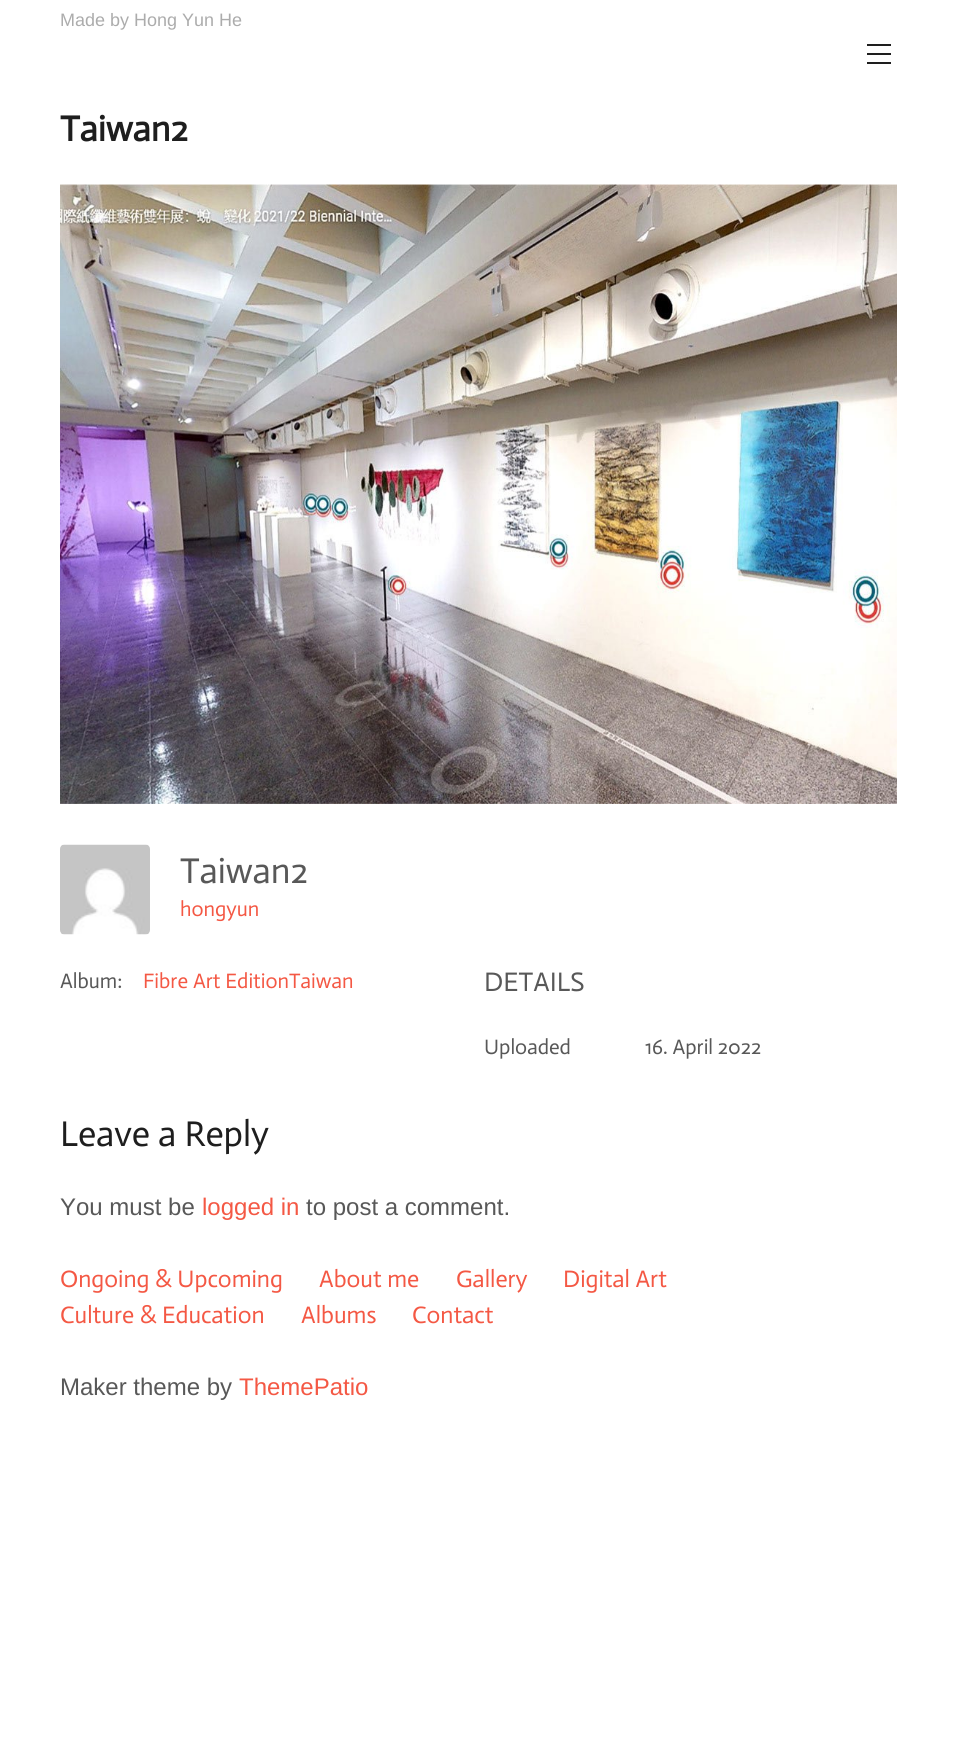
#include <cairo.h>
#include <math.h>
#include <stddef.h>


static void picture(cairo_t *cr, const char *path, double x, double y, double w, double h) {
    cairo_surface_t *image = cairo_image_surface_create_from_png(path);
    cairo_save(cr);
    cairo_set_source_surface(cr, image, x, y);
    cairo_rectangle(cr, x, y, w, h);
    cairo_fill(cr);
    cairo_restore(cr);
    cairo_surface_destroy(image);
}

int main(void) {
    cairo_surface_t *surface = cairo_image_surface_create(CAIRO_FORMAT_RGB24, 957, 1753);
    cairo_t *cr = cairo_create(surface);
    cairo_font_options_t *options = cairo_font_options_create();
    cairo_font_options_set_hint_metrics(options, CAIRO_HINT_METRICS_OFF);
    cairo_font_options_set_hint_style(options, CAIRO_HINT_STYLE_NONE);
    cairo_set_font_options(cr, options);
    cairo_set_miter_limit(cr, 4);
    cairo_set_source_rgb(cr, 1, 1, 1);
    cairo_paint(cr);
    cairo_select_font_face(cr, "Liberation Sans", CAIRO_FONT_SLANT_NORMAL, CAIRO_FONT_WEIGHT_NORMAL);
    cairo_set_font_size(cr, 18);
    cairo_set_source_rgb(cr, 0.675, 0.675, 0.675);
    cairo_move_to(cr, 60, 26);
    cairo_show_text(cr, "Made by Hong Yun He");
    cairo_set_source_rgb(cr, 0.118, 0.118, 0.118);
    cairo_rectangle(cr, 867, 53, 24, 2);
    cairo_fill(cr);
    cairo_rectangle(cr, 867, 44, 24, 2);
    cairo_fill(cr);
    cairo_rectangle(cr, 867, 62, 24, 2);
    cairo_fill(cr);
    cairo_select_font_face(cr, "Actor", CAIRO_FONT_SLANT_NORMAL, CAIRO_FONT_WEIGHT_BOLD);
    cairo_set_font_size(cr, 36);
    cairo_move_to(cr, 60, 141);
    cairo_show_text(cr, "Taiwan2");
    picture(cr, "img1.png", 60, 184, 837, 620);
    picture(cr, "img2.png", 60, 844, 90, 91);
    cairo_select_font_face(cr, "Actor", CAIRO_FONT_SLANT_NORMAL, CAIRO_FONT_WEIGHT_NORMAL);
    cairo_set_source_rgb(cr, 0.345, 0.345, 0.345);
    cairo_move_to(cr, 180, 883);
    cairo_show_text(cr, "Taiwan2");
    cairo_set_font_size(cr, 21);
    cairo_set_source_rgb(cr, 0.957, 0.345, 0.267);
    cairo_move_to(cr, 180, 916);
    cairo_show_text(cr, "hongyun");
    cairo_set_source_rgb(cr, 0.345, 0.345, 0.345);
    cairo_move_to(cr, 60, 988);
    cairo_show_text(cr, "Album:");
    cairo_set_source_rgb(cr, 0.957, 0.345, 0.267);
    cairo_move_to(cr, 143, 988);
    cairo_show_text(cr, "Fibre Art EditionTaiwan");
    cairo_set_font_size(cr, 27);
    cairo_set_source_rgb(cr, 0.345, 0.345, 0.345);
    cairo_move_to(cr, 484, 991);
    cairo_show_text(cr, "DETAILS");
    cairo_set_font_size(cr, 21);
    cairo_move_to(cr, 484, 1054);
    cairo_show_text(cr, "Uploaded");
    cairo_move_to(cr, 645, 1054);
    cairo_show_text(cr, "16. April 2022");
    cairo_set_font_size(cr, 36);
    cairo_set_source_rgb(cr, 0.118, 0.118, 0.118);
    cairo_move_to(cr, 60, 1146);
    cairo_show_text(cr, "Leave a Reply");
    cairo_select_font_face(cr, "Liberation Sans", CAIRO_FONT_SLANT_NORMAL, CAIRO_FONT_WEIGHT_NORMAL);
    cairo_set_font_size(cr, 24);
    cairo_set_source_rgb(cr, 0.345, 0.345, 0.345);
    cairo_move_to(cr, 60, 1215);
    cairo_show_text(cr, "You must be");
    cairo_set_source_rgb(cr, 0.957, 0.345, 0.267);
    cairo_move_to(cr, 202, 1215);
    cairo_show_text(cr, "logged in");
    cairo_set_source_rgb(cr, 0.345, 0.345, 0.345);
    cairo_move_to(cr, 306, 1215);
    cairo_show_text(cr, "to post a comment.");
    cairo_select_font_face(cr, "Actor", CAIRO_FONT_SLANT_NORMAL, CAIRO_FONT_WEIGHT_NORMAL);
    cairo_set_source_rgb(cr, 0.957, 0.345, 0.267);
    cairo_move_to(cr, 60, 1287);
    cairo_show_text(cr, "Ongoing & Upcoming");
    cairo_move_to(cr, 319, 1287);
    cairo_show_text(cr, "About me");
    cairo_move_to(cr, 456, 1287);
    cairo_show_text(cr, "Gallery");
    cairo_move_to(cr, 563, 1287);
    cairo_show_text(cr, "Digital Art");
    cairo_move_to(cr, 60, 1323);
    cairo_show_text(cr, "Culture & Education");
    cairo_move_to(cr, 301, 1323);
    cairo_show_text(cr, "Albums");
    cairo_move_to(cr, 412, 1323);
    cairo_show_text(cr, "Contact");
    cairo_select_font_face(cr, "Liberation Sans", CAIRO_FONT_SLANT_NORMAL, CAIRO_FONT_WEIGHT_NORMAL);
    cairo_set_source_rgb(cr, 0.345, 0.345, 0.345);
    cairo_move_to(cr, 60, 1395);
    cairo_show_text(cr, "Maker theme by");
    cairo_set_source_rgb(cr, 0.957, 0.345, 0.267);
    cairo_move_to(cr, 239, 1395);
    cairo_show_text(cr, "ThemePatio");
    cairo_surface_write_to_png(surface, "page.png");
    cairo_font_options_destroy(options);
    cairo_destroy(cr);
    cairo_surface_destroy(surface);
    return 0;
}
